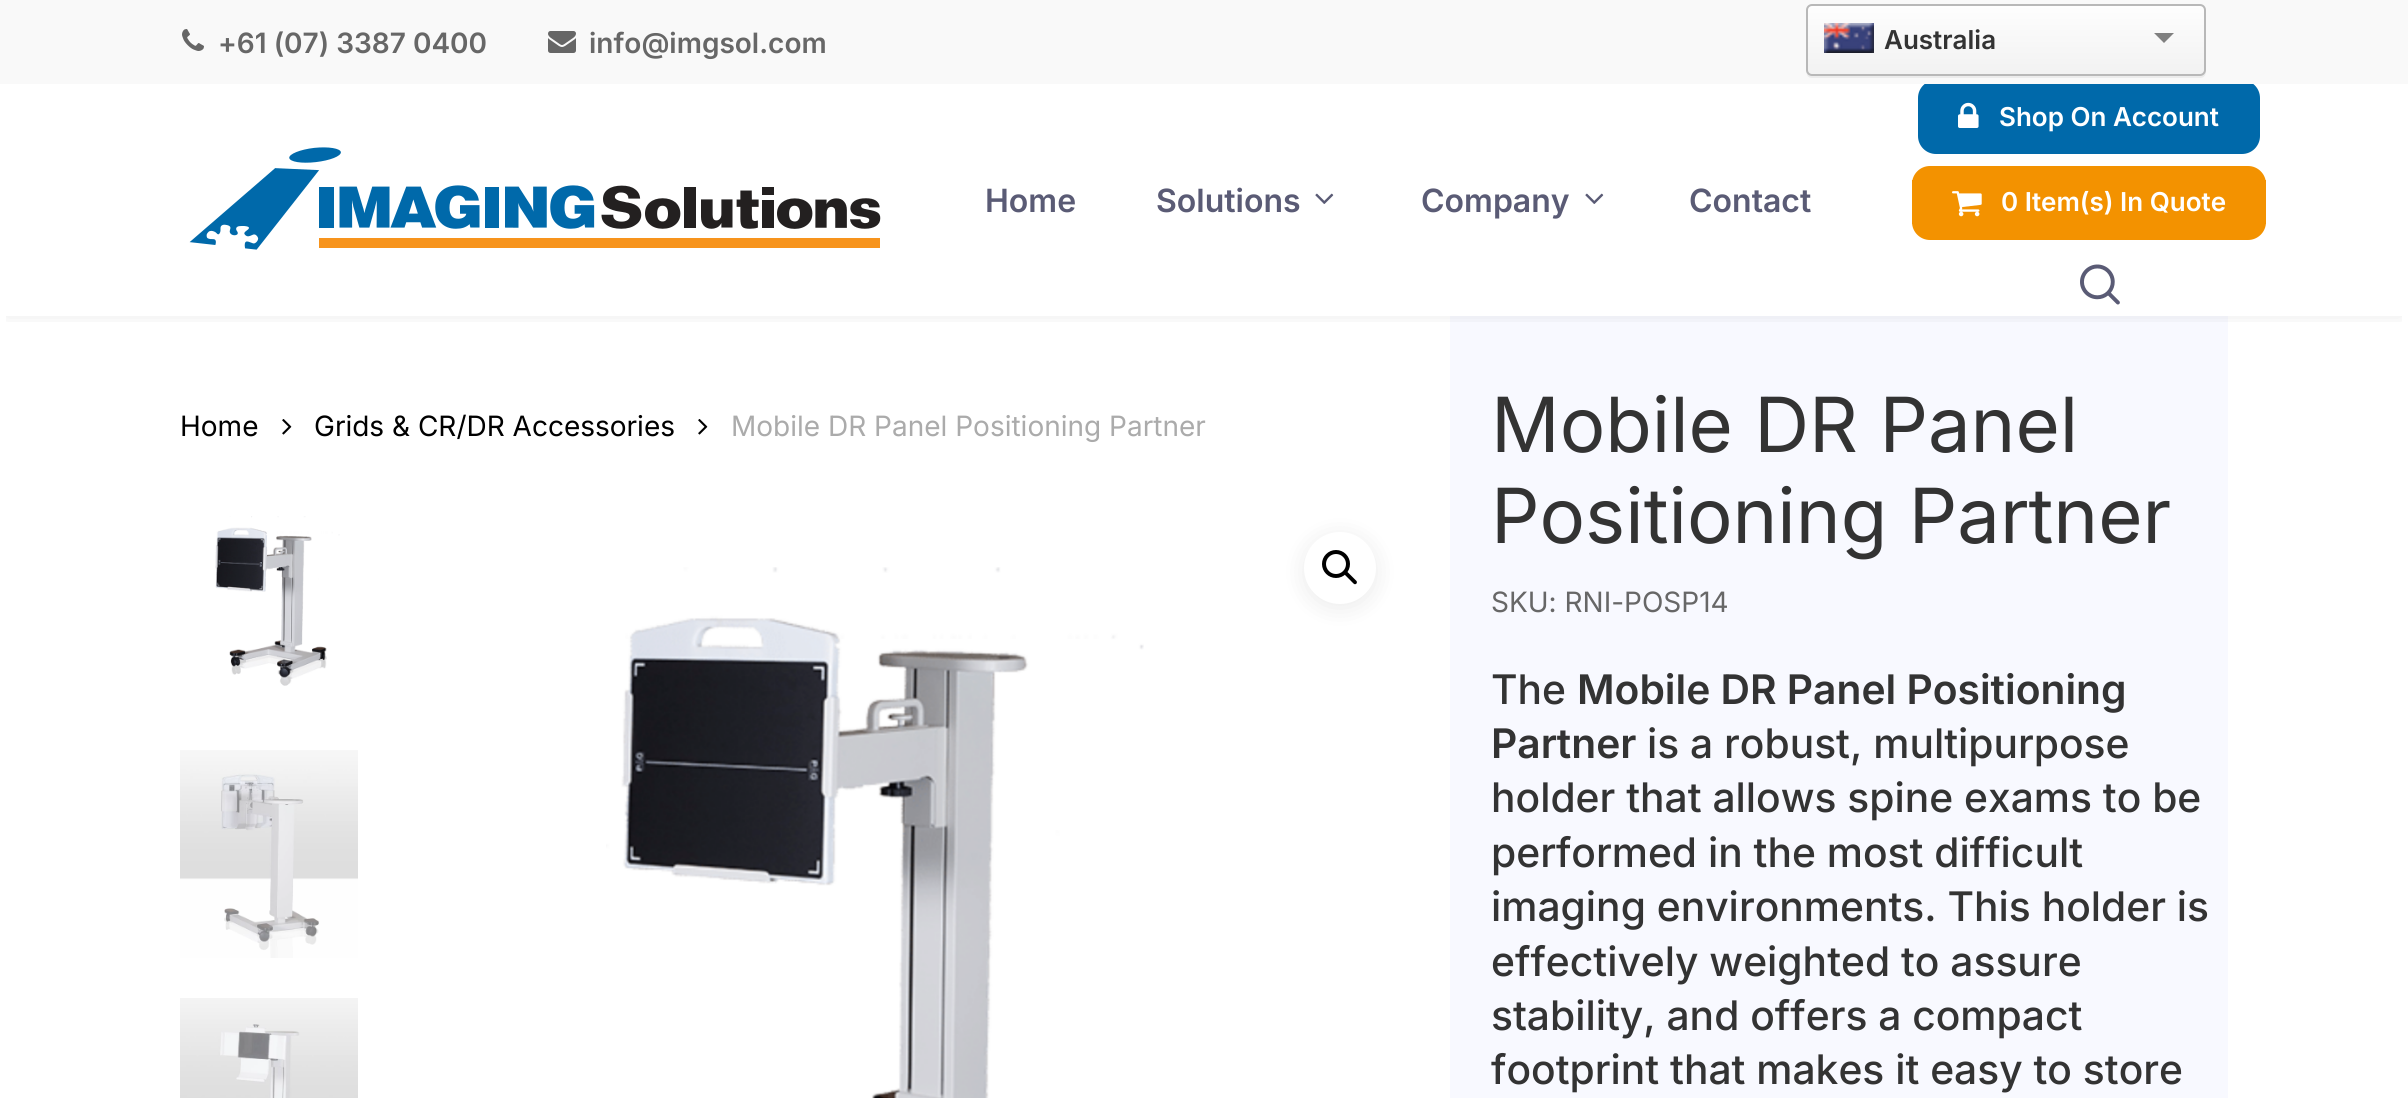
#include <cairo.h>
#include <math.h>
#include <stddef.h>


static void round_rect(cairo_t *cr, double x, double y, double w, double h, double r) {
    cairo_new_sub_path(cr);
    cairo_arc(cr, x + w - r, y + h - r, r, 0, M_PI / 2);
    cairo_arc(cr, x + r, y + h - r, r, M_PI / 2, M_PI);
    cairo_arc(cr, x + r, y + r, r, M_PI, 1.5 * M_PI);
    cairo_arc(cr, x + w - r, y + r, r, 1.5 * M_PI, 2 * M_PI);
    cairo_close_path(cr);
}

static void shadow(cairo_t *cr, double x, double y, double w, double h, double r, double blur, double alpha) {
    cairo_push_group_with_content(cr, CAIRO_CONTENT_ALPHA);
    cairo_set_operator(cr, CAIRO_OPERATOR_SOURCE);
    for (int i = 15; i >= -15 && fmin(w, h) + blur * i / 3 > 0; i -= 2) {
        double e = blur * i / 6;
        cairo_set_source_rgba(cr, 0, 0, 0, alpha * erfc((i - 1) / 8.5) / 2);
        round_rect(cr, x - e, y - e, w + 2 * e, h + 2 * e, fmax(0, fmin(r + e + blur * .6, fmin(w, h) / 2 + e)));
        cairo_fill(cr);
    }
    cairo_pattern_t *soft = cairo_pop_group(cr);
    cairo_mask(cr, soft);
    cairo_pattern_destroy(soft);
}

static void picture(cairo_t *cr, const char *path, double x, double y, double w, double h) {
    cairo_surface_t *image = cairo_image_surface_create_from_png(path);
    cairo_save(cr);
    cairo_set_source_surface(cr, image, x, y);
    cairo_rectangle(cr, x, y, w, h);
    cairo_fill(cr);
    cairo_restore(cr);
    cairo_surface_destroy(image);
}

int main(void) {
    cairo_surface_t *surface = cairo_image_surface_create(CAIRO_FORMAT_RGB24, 2408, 1098);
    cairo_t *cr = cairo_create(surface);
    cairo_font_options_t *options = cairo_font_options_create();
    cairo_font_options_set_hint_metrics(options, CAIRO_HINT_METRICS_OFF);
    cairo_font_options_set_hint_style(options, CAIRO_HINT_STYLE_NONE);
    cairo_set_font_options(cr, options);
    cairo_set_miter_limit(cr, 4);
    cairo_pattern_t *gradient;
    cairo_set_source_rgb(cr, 1, 1, 1);
    cairo_paint(cr);
    cairo_set_source_rgb(cr, 0.969, 0.976, 1);
    cairo_rectangle(cr, 1450, 316, 778, 782);
    cairo_fill(cr);
    cairo_save(cr);
    cairo_rectangle(cr, 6, 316, 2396, 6);
    cairo_clip(cr);
    cairo_set_source_rgb(cr, 0, 0, 0);
    shadow(cr, 6, 94, 2396, 220, 0, 10, 0.1);
    cairo_restore(cr);
    cairo_set_source_rgb(cr, 0, 0.412, 0.667);
    round_rect(cr, 1918, 80, 342, 74, 18);
    cairo_fill(cr);
    cairo_set_source_rgb(cr, 0.973, 0.973, 0.973);
    cairo_rectangle(cr, 0, 0, 2408, 84);
    cairo_fill(cr);
    picture(cr, "img1.png", 182, 29, 22, 22);
    cairo_select_font_face(cr, "Inter SemiBold", CAIRO_FONT_SLANT_NORMAL, CAIRO_FONT_WEIGHT_NORMAL);
    cairo_set_font_size(cr, 28);
    cairo_set_source_rgb(cr, 0.404, 0.404, 0.404);
    cairo_move_to(cr, 218, 53);
    cairo_show_text(cr, "+61 (07) 3387 0400");
    picture(cr, "img2.png", 548, 31, 28, 22);
    cairo_move_to(cr, 589, 53);
    cairo_show_text(cr, "info@imgsol.com");
    cairo_set_source_rgb(cr, 0.925, 0.925, 0.925);
    cairo_new_path(cr);
    cairo_move_to(cr, 1806, 69);
    cairo_curve_to(cr, 1806, 73, 1807, 78, 1812, 78);
    cairo_line_to(cr, 2201, 78);
    cairo_curve_to(cr, 2206, 77, 2206, 73, 2206, 69);
    cairo_curve_to(cr, 2206, 72, 2203, 75, 2200, 75);
    cairo_line_to(cr, 1812, 75);
    cairo_curve_to(cr, 1809, 75, 1806, 72, 1806, 69);
    cairo_close_path(cr);
    cairo_fill(cr);
    cairo_save(cr);
    round_rect(cr, 1806, 4, 400, 72, 6);
    cairo_clip(cr);
    gradient = cairo_pattern_create_linear(2006, 5, 2006, 73);
    cairo_pattern_add_color_stop_rgba(gradient, 0, 0.996, 0.996, 0.996, 1);
    cairo_pattern_add_color_stop_rgba(gradient, 1, 0.949, 0.949, 0.949, 1);
    cairo_set_source(cr, gradient);
    cairo_pattern_destroy(gradient);
    cairo_rectangle(cr, 1806, 6, 400, 68);
    cairo_fill(cr);
    cairo_restore(cr);
    round_rect(cr, 1807, 5, 398, 70, 5);
    cairo_set_source_rgb(cr, 0.722, 0.722, 0.722);
    cairo_stroke(cr);
    picture(cr, "img3.png", 1824, 23, 50, 30);
    cairo_set_font_size(cr, 26);
    cairo_set_source_rgb(cr, 0.2, 0.2, 0.2);
    cairo_move_to(cr, 1884, 49);
    cairo_show_text(cr, "Australia");
    cairo_set_source_rgb(cr, 0.502, 0.502, 0.502);
    cairo_new_path(cr);
    cairo_move_to(cr, 2154, 33);
    cairo_line_to(cr, 2174, 33);
    cairo_line_to(cr, 2164, 43);
    cairo_close_path(cr);
    cairo_fill(cr);
    picture(cr, "img4.png", 189, 147, 692, 103);
    cairo_set_font_size(cr, 32);
    cairo_set_source_rgb(cr, 0.353, 0.357, 0.459);
    cairo_move_to(cr, 985, 212);
    cairo_show_text(cr, "Home");
    cairo_move_to(cr, 1156, 212);
    cairo_show_text(cr, "Solutions");
    picture(cr, "img5.png", 1315, 193, 19, 11);
    cairo_move_to(cr, 1421, 212);
    cairo_show_text(cr, "Company");
    picture(cr, "img5.png", 1585, 193, 19, 11);
    cairo_move_to(cr, 1689, 212);
    cairo_show_text(cr, "Contact");
    picture(cr, "img6.png", 1958, 102, 21, 26);
    cairo_set_font_size(cr, 26);
    cairo_set_source_rgb(cr, 1, 1, 1);
    cairo_move_to(cr, 1999, 126);
    cairo_show_text(cr, "Shop On Account");
    cairo_set_source_rgb(cr, 0.953, 0.573, 0);
    cairo_rectangle(cr, 1912, 180, 354, 44);
    cairo_fill(cr);
    round_rect(cr, 1912, 166, 354, 74, 18);
    cairo_fill(cr);
    picture(cr, "img7.png", 1952, 191, 30, 26);
    cairo_set_source_rgb(cr, 1, 1, 1);
    cairo_move_to(cr, 2001, 211);
    cairo_show_text(cr, "0 Item(s) In Quote");
    picture(cr, "img8.png", 2080, 264, 40, 41);
    cairo_select_font_face(cr, "Inter", CAIRO_FONT_SLANT_NORMAL, CAIRO_FONT_WEIGHT_NORMAL);
    cairo_set_font_size(cr, 28);
    cairo_set_source_rgb(cr, 0, 0, 0);
    cairo_move_to(cr, 180, 436);
    cairo_show_text(cr, "Home");
    picture(cr, "img9.png", 282, 419, 10, 16);
    cairo_move_to(cr, 314, 436);
    cairo_show_text(cr, "Grids & CR/DR Accessories");
    picture(cr, "img9.png", 698, 419, 10, 16);
    cairo_set_source_rgb(cr, 0.671, 0.671, 0.671);
    cairo_move_to(cr, 731, 436);
    cairo_show_text(cr, "Mobile DR Panel Positioning Partner");
    picture(cr, "img10.png", 215, 516, 125, 170);
    picture(cr, "img11.png", 180, 750, 178, 208);
    picture(cr, "img12.png", 180, 998, 178, 100);
    picture(cr, "img13.png", 606, 567, 538, 531);
    cairo_set_source_rgb(cr, 0, 0, 0);
    shadow(cr, 1304, 536, 72, 72, 36, 12, 0.08);
    cairo_set_source_rgb(cr, 1, 1, 1);
    cairo_arc(cr, 1340, 568, 36, 0, 2 * M_PI);
    cairo_fill(cr);
    cairo_arc(cr, 1336, 564, 12, 0, 2 * M_PI);
    cairo_set_source_rgb(cr, 0, 0, 0);
    cairo_set_line_width(cr, 4);
    cairo_stroke(cr);
    cairo_new_path(cr);
    cairo_move_to(cr, 1345, 572.5);
    cairo_curve_to(cr, 1346, 571.5, 1347, 571.5, 1348, 572.5);
    cairo_line_to(cr, 1356.5, 581);
    cairo_curve_to(cr, 1357, 581.5, 1357, 583, 1356.5, 583.5);
    cairo_curve_to(cr, 1355.5, 584.5, 1354.5, 584.5, 1353.5, 583.5);
    cairo_line_to(cr, 1345, 575);
    cairo_curve_to(cr, 1344.5, 574.5, 1344.5, 573, 1345, 572.5);
    cairo_close_path(cr);
    cairo_fill(cr);
    cairo_set_font_size(cr, 76);
    cairo_set_source_rgb(cr, 0.2, 0.2, 0.2);
    cairo_move_to(cr, 1491, 452);
    cairo_show_text(cr, "Mobile DR Panel");
    cairo_move_to(cr, 1491, 543);
    cairo_show_text(cr, "Positioning Partner");
    cairo_set_font_size(cr, 28);
    cairo_set_source_rgb(cr, 0.404, 0.404, 0.404);
    cairo_move_to(cr, 1491, 612);
    cairo_show_text(cr, "SKU: RNI-POSP14");
    cairo_select_font_face(cr, "Inter Medium", CAIRO_FONT_SLANT_NORMAL, CAIRO_FONT_WEIGHT_NORMAL);
    cairo_set_font_size(cr, 40.75);
    cairo_set_source_rgb(cr, 0.2, 0.2, 0.2);
    cairo_move_to(cr, 1491, 704);
    cairo_show_text(cr, "The");
    cairo_select_font_face(cr, "Inter SemiBold", CAIRO_FONT_SLANT_NORMAL, CAIRO_FONT_WEIGHT_NORMAL);
    cairo_move_to(cr, 1577, 704);
    cairo_show_text(cr, "Mobile DR Panel Positioning");
    cairo_move_to(cr, 1491, 758);
    cairo_show_text(cr, "Partner");
    cairo_select_font_face(cr, "Inter Medium", CAIRO_FONT_SLANT_NORMAL, CAIRO_FONT_WEIGHT_NORMAL);
    cairo_move_to(cr, 1647, 758);
    cairo_show_text(cr, "is a robust, multipurpose");
    cairo_move_to(cr, 1491, 812);
    cairo_show_text(cr, "holder that allows spine exams to be");
    cairo_move_to(cr, 1491, 867);
    cairo_show_text(cr, "performed in the most difficult");
    cairo_move_to(cr, 1491, 921);
    cairo_show_text(cr, "imaging environments. This holder is");
    cairo_move_to(cr, 1491, 976);
    cairo_show_text(cr, "effectively weighted to assure");
    cairo_move_to(cr, 1491, 1030);
    cairo_show_text(cr, "stability, and offers a compact");
    cairo_move_to(cr, 1491, 1084);
    cairo_show_text(cr, "footprint that makes it easy to store");
    cairo_surface_write_to_png(surface, "page.png");
    cairo_font_options_destroy(options);
    cairo_destroy(cr);
    cairo_surface_destroy(surface);
    return 0;
}
